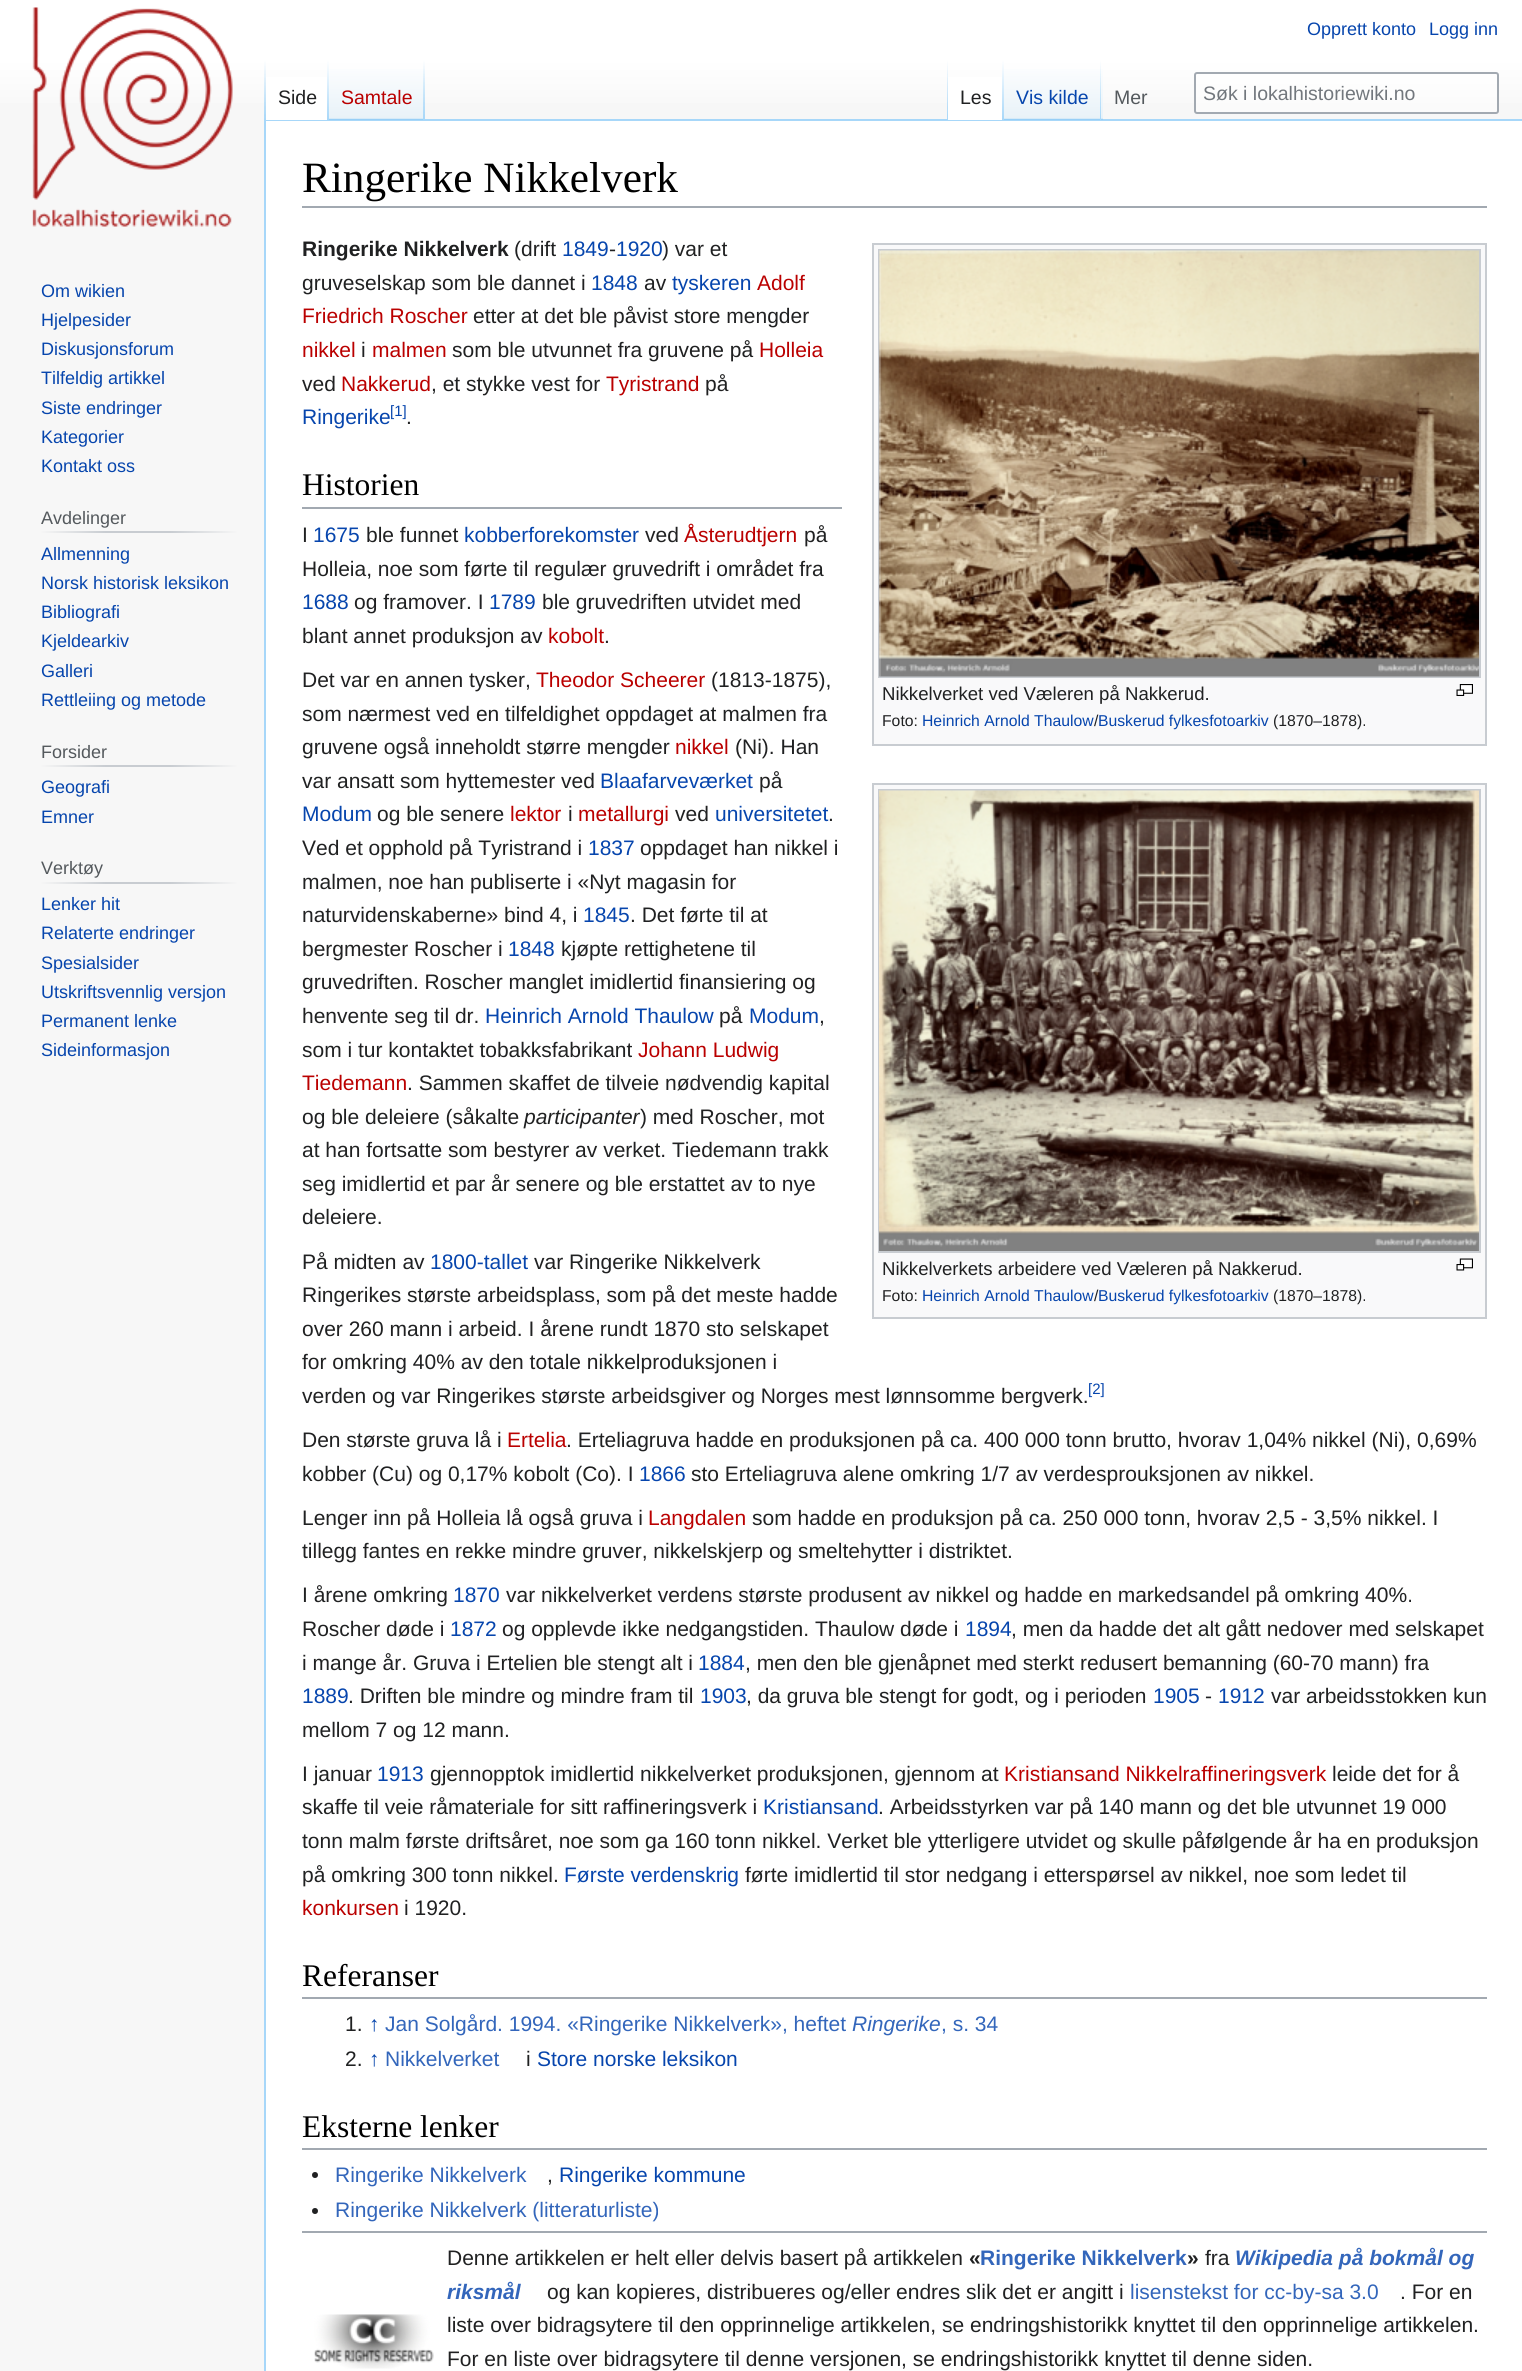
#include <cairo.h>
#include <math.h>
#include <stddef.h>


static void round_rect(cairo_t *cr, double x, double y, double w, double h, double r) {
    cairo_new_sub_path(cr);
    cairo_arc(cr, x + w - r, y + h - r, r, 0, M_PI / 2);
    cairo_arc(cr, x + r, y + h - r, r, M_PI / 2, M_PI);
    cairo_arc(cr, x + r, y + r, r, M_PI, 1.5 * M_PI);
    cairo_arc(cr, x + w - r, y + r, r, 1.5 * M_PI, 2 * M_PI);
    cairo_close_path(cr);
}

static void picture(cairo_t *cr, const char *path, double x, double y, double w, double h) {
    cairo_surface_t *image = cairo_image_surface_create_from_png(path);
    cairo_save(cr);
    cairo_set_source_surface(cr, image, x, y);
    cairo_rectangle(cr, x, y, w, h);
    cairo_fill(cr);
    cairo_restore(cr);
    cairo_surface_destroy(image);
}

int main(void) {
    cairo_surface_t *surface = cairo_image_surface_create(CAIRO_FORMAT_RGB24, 1522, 2371);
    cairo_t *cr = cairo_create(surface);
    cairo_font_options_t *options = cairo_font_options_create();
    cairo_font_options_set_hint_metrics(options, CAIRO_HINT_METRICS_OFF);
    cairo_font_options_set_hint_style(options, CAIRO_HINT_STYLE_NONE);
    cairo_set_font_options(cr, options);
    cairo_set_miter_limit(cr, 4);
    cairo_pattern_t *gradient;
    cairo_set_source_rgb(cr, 0.965, 0.965, 0.965);
    cairo_paint(cr);
    gradient = cairo_pattern_create_linear(761, 0, 761, 120);
    cairo_pattern_add_color_stop_rgba(gradient, 0.5, 1, 1, 1, 1);
    cairo_pattern_add_color_stop_rgba(gradient, 1, 0.965, 0.965, 0.965, 1);
    cairo_set_source(cr, gradient);
    cairo_pattern_destroy(gradient);
    cairo_rectangle(cr, 0, 0, 1522, 103);
    cairo_fill(cr);
    cairo_select_font_face(cr, "Liberation Sans", CAIRO_FONT_SLANT_NORMAL, CAIRO_FONT_WEIGHT_NORMAL);
    cairo_set_font_size(cr, 18);
    cairo_set_source_rgb(cr, 0.024, 0.271, 0.678);
    cairo_move_to(cr, 1307, 35);
    cairo_show_text(cr, "Opprett konto");
    cairo_move_to(cr, 1429, 35);
    cairo_show_text(cr, "Logg inn");
    cairo_set_source_rgb(cr, 0.655, 0.843, 0.976);
    cairo_rectangle(cr, 264, 119, 1258, 2);
    cairo_fill(cr);
    cairo_rectangle(cr, 264, 119, 2, 2252);
    cairo_fill(cr);
    gradient = cairo_pattern_create_linear(265, 60, 265, 120);
    cairo_pattern_add_color_stop_rgba(gradient, 0, 0.655, 0.843, 0.976, 0);
    cairo_pattern_add_color_stop_rgba(gradient, 1, 0.655, 0.843, 0.976, 1);
    cairo_set_source(cr, gradient);
    cairo_pattern_destroy(gradient);
    cairo_rectangle(cr, 264, 60, 2, 60);
    cairo_fill(cr);
    cairo_set_source_rgb(cr, 1, 1, 1);
    cairo_rectangle(cr, 266, 77, 61, 43);
    cairo_fill(cr);
    gradient = cairo_pattern_create_linear(328, 60, 328, 120);
    cairo_pattern_add_color_stop_rgba(gradient, 0, 1, 1, 1, 1);
    cairo_pattern_add_color_stop_rgba(gradient, 1, 0.655, 0.843, 0.976, 1);
    cairo_set_source(cr, gradient);
    cairo_pattern_destroy(gradient);
    cairo_rectangle(cr, 327, 60, 2, 60);
    cairo_fill(cr);
    cairo_set_font_size(cr, 19.5);
    cairo_set_source_rgb(cr, 0.125, 0.129, 0.133);
    cairo_move_to(cr, 278, 104);
    cairo_show_text(cr, "Side");
    gradient = cairo_pattern_create_linear(377, 120, 377, 60);
    cairo_pattern_add_color_stop_rgba(gradient, 0, 0.467, 0.757, 0.965, 1);
    cairo_pattern_add_color_stop_rgba(gradient, 0.03, 0.91, 0.949, 0.973, 1);
    cairo_pattern_add_color_stop_rgba(gradient, 1, 1, 1, 1, 1);
    cairo_set_source(cr, gradient);
    cairo_pattern_destroy(gradient);
    cairo_rectangle(cr, 329, 69, 96, 51);
    cairo_fill(cr);
    gradient = cairo_pattern_create_linear(424, 60, 424, 120);
    cairo_pattern_add_color_stop_rgba(gradient, 0, 0.655, 0.843, 0.976, 0);
    cairo_pattern_add_color_stop_rgba(gradient, 1, 0.655, 0.843, 0.976, 1);
    cairo_set_source(cr, gradient);
    cairo_pattern_destroy(gradient);
    cairo_rectangle(cr, 423, 60, 2, 60);
    cairo_fill(cr);
    cairo_set_source_rgb(cr, 0.729, 0, 0);
    cairo_move_to(cr, 341, 104);
    cairo_show_text(cr, "Samtale");
    gradient = cairo_pattern_create_linear(947, 60, 947, 120);
    cairo_pattern_add_color_stop_rgba(gradient, 0, 0.655, 0.843, 0.976, 0);
    cairo_pattern_add_color_stop_rgba(gradient, 1, 0.655, 0.843, 0.976, 1);
    cairo_set_source(cr, gradient);
    cairo_pattern_destroy(gradient);
    cairo_rectangle(cr, 947, 60, 1, 60);
    cairo_fill(cr);
    cairo_set_source_rgb(cr, 1, 1, 1);
    cairo_rectangle(cr, 948, 77, 54, 43);
    cairo_fill(cr);
    gradient = cairo_pattern_create_linear(1003, 60, 1003, 120);
    cairo_pattern_add_color_stop_rgba(gradient, 0, 1, 1, 1, 1);
    cairo_pattern_add_color_stop_rgba(gradient, 1, 0.655, 0.843, 0.976, 1);
    cairo_set_source(cr, gradient);
    cairo_pattern_destroy(gradient);
    cairo_rectangle(cr, 1002, 60, 2, 60);
    cairo_fill(cr);
    cairo_set_source_rgb(cr, 0.125, 0.129, 0.133);
    cairo_move_to(cr, 960, 104);
    cairo_show_text(cr, "Les");
    gradient = cairo_pattern_create_linear(1052, 120, 1052, 60);
    cairo_pattern_add_color_stop_rgba(gradient, 0, 0.467, 0.757, 0.965, 1);
    cairo_pattern_add_color_stop_rgba(gradient, 0.03, 0.91, 0.949, 0.973, 1);
    cairo_pattern_add_color_stop_rgba(gradient, 1, 1, 1, 1, 1);
    cairo_set_source(cr, gradient);
    cairo_pattern_destroy(gradient);
    cairo_rectangle(cr, 1004, 69, 97, 51);
    cairo_fill(cr);
    gradient = cairo_pattern_create_linear(1100, 60, 1100, 120);
    cairo_pattern_add_color_stop_rgba(gradient, 0, 0.655, 0.843, 0.976, 0);
    cairo_pattern_add_color_stop_rgba(gradient, 1, 0.655, 0.843, 0.976, 1);
    cairo_set_source(cr, gradient);
    cairo_pattern_destroy(gradient);
    cairo_rectangle(cr, 1100, 60, 1, 60);
    cairo_fill(cr);
    cairo_set_source_rgb(cr, 0.024, 0.271, 0.678);
    cairo_move_to(cr, 1016, 104);
    cairo_show_text(cr, "Vis kilde");
    gradient = cairo_pattern_create_linear(1102, 120, 1102, 60);
    cairo_pattern_add_color_stop_rgba(gradient, 0, 0.467, 0.757, 0.965, 1);
    cairo_pattern_add_color_stop_rgba(gradient, 0.03, 0.91, 0.949, 0.973, 1);
    cairo_pattern_add_color_stop_rgba(gradient, 1, 1, 1, 1, 1);
    cairo_set_source(cr, gradient);
    cairo_pattern_destroy(gradient);
    cairo_rectangle(cr, 1101, 69, 2, 51);
    cairo_fill(cr);
    cairo_set_source_rgb(cr, 0.329, 0.349, 0.365);
    cairo_move_to(cr, 1114, 104);
    cairo_show_text(cr, "Mer");
    cairo_set_source_rgba(cr, 1, 1, 1, 0.5);
    round_rect(cr, 1195, 73, 303, 40, 2);
    cairo_fill_preserve(cr);
    cairo_set_source_rgb(cr, 0.635, 0.663, 0.694);
    cairo_stroke(cr);
    cairo_set_source_rgb(cr, 0.447, 0.467, 0.49);
    cairo_move_to(cr, 1203, 100);
    cairo_show_text(cr, "Søk i lokalhistoriewiki.no");
    picture(cr, "img1.png", 32, 7, 201, 220);
    cairo_set_font_size(cr, 18);
    cairo_set_source_rgb(cr, 0.024, 0.271, 0.678);
    cairo_move_to(cr, 41, 297);
    cairo_show_text(cr, "Om wikien");
    cairo_move_to(cr, 41, 326);
    cairo_show_text(cr, "Hjelpesider");
    cairo_move_to(cr, 41, 355);
    cairo_show_text(cr, "Diskusjonsforum");
    cairo_move_to(cr, 41, 384);
    cairo_show_text(cr, "Tilfeldig artikkel");
    cairo_move_to(cr, 41, 414);
    cairo_show_text(cr, "Siste endringer");
    cairo_move_to(cr, 41, 443);
    cairo_show_text(cr, "Kategorier");
    cairo_move_to(cr, 41, 472);
    cairo_show_text(cr, "Kontakt oss");
    gradient = cairo_pattern_create_linear(41, 532, 237, 532);
    cairo_pattern_add_color_stop_rgba(gradient, 0, 0.965, 0.965, 0.965, 1);
    cairo_pattern_add_color_stop_rgba(gradient, 0.33, 0.784, 0.8, 0.82, 1);
    cairo_pattern_add_color_stop_rgba(gradient, 0.66, 0.784, 0.8, 0.82, 1);
    cairo_pattern_add_color_stop_rgba(gradient, 1, 0.965, 0.965, 0.965, 1);
    cairo_set_source(cr, gradient);
    cairo_pattern_destroy(gradient);
    cairo_rectangle(cr, 41, 531, 196, 2);
    cairo_fill(cr);
    cairo_set_source_rgb(cr, 0.329, 0.349, 0.365);
    cairo_move_to(cr, 41, 524);
    cairo_show_text(cr, "Avdelinger");
    cairo_set_source_rgb(cr, 0.024, 0.271, 0.678);
    cairo_move_to(cr, 41, 560);
    cairo_show_text(cr, "Allmenning");
    cairo_move_to(cr, 41, 589);
    cairo_show_text(cr, "Norsk historisk leksikon");
    cairo_move_to(cr, 41, 618);
    cairo_show_text(cr, "Bibliografi");
    cairo_move_to(cr, 41, 647);
    cairo_show_text(cr, "Kjeldearkiv");
    cairo_move_to(cr, 41, 677);
    cairo_show_text(cr, "Galleri");
    cairo_move_to(cr, 41, 706);
    cairo_show_text(cr, "Rettleiing og metode");
    gradient = cairo_pattern_create_linear(41, 766, 237, 766);
    cairo_pattern_add_color_stop_rgba(gradient, 0, 0.965, 0.965, 0.965, 1);
    cairo_pattern_add_color_stop_rgba(gradient, 0.33, 0.784, 0.8, 0.82, 1);
    cairo_pattern_add_color_stop_rgba(gradient, 0.66, 0.784, 0.8, 0.82, 1);
    cairo_pattern_add_color_stop_rgba(gradient, 1, 0.965, 0.965, 0.965, 1);
    cairo_set_source(cr, gradient);
    cairo_pattern_destroy(gradient);
    cairo_rectangle(cr, 41, 765, 196, 2);
    cairo_fill(cr);
    cairo_set_source_rgb(cr, 0.329, 0.349, 0.365);
    cairo_move_to(cr, 41, 758);
    cairo_show_text(cr, "Forsider");
    cairo_set_source_rgb(cr, 0.024, 0.271, 0.678);
    cairo_move_to(cr, 41, 793);
    cairo_show_text(cr, "Geografi");
    cairo_move_to(cr, 41, 823);
    cairo_show_text(cr, "Emner");
    gradient = cairo_pattern_create_linear(41, 883, 237, 883);
    cairo_pattern_add_color_stop_rgba(gradient, 0, 0.965, 0.965, 0.965, 1);
    cairo_pattern_add_color_stop_rgba(gradient, 0.33, 0.784, 0.8, 0.82, 1);
    cairo_pattern_add_color_stop_rgba(gradient, 0.66, 0.784, 0.8, 0.82, 1);
    cairo_pattern_add_color_stop_rgba(gradient, 1, 0.965, 0.965, 0.965, 1);
    cairo_set_source(cr, gradient);
    cairo_pattern_destroy(gradient);
    cairo_rectangle(cr, 41, 882, 196, 2);
    cairo_fill(cr);
    cairo_set_source_rgb(cr, 0.329, 0.349, 0.365);
    cairo_move_to(cr, 41, 874);
    cairo_show_text(cr, "Verktøy");
    cairo_set_source_rgb(cr, 0.024, 0.271, 0.678);
    cairo_move_to(cr, 41, 910);
    cairo_show_text(cr, "Lenker hit");
    cairo_move_to(cr, 41, 939);
    cairo_show_text(cr, "Relaterte endringer");
    cairo_move_to(cr, 41, 969);
    cairo_show_text(cr, "Spesialsider");
    cairo_move_to(cr, 41, 998);
    cairo_show_text(cr, "Utskriftsvennlig versjon");
    cairo_move_to(cr, 41, 1027);
    cairo_show_text(cr, "Permanent lenke");
    cairo_move_to(cr, 41, 1056);
    cairo_show_text(cr, "Sideinformasjon");
    cairo_set_source_rgb(cr, 1, 1, 1);
    cairo_rectangle(cr, 266, 121, 1256, 2250);
    cairo_fill(cr);
    cairo_set_source_rgb(cr, 0.635, 0.663, 0.694);
    cairo_rectangle(cr, 302, 206, 1185, 2);
    cairo_fill(cr);
    cairo_select_font_face(cr, "Liberation Serif", CAIRO_FONT_SLANT_NORMAL, CAIRO_FONT_WEIGHT_NORMAL);
    cairo_set_font_size(cr, 43.25);
    cairo_set_source_rgb(cr, 0, 0, 0);
    cairo_move_to(cr, 302, 192);
    cairo_show_text(cr, "Ringerike Nikkelverk");
    cairo_select_font_face(cr, "Liberation Sans", CAIRO_FONT_SLANT_NORMAL, CAIRO_FONT_WEIGHT_BOLD);
    cairo_set_font_size(cr, 21);
    cairo_set_source_rgb(cr, 0.125, 0.129, 0.133);
    cairo_move_to(cr, 302, 256);
    cairo_show_text(cr, "Ringerike Nikkelverk");
    cairo_select_font_face(cr, "Liberation Sans", CAIRO_FONT_SLANT_NORMAL, CAIRO_FONT_WEIGHT_NORMAL);
    cairo_move_to(cr, 514, 256);
    cairo_show_text(cr, "(drift");
    cairo_set_source_rgb(cr, 0.024, 0.271, 0.678);
    cairo_move_to(cr, 562, 256);
    cairo_show_text(cr, "1849");
    cairo_set_source_rgb(cr, 0.125, 0.129, 0.133);
    cairo_move_to(cr, 609, 256);
    cairo_show_text(cr, "-");
    cairo_set_source_rgb(cr, 0.024, 0.271, 0.678);
    cairo_move_to(cr, 616, 256);
    cairo_show_text(cr, "1920");
    cairo_set_source_rgb(cr, 0.125, 0.129, 0.133);
    cairo_move_to(cr, 662, 256);
    cairo_show_text(cr, ") var et");
    cairo_move_to(cr, 302, 290);
    cairo_show_text(cr, "gruveselskap som ble dannet i");
    cairo_set_source_rgb(cr, 0.024, 0.271, 0.678);
    cairo_move_to(cr, 591, 290);
    cairo_show_text(cr, "1848");
    cairo_set_source_rgb(cr, 0.125, 0.129, 0.133);
    cairo_move_to(cr, 644, 290);
    cairo_show_text(cr, "av");
    cairo_set_source_rgb(cr, 0.024, 0.271, 0.678);
    cairo_move_to(cr, 672, 290);
    cairo_show_text(cr, "tyskeren");
    cairo_set_source_rgb(cr, 0.729, 0, 0);
    cairo_move_to(cr, 757, 290);
    cairo_show_text(cr, "Adolf");
    cairo_move_to(cr, 302, 323);
    cairo_show_text(cr, "Friedrich Roscher");
    cairo_set_source_rgb(cr, 0.125, 0.129, 0.133);
    cairo_move_to(cr, 473, 323);
    cairo_show_text(cr, "etter at det ble påvist store mengder");
    cairo_set_source_rgb(cr, 0.729, 0, 0);
    cairo_move_to(cr, 302, 357);
    cairo_show_text(cr, "nikkel");
    cairo_set_source_rgb(cr, 0.125, 0.129, 0.133);
    cairo_move_to(cr, 361, 357);
    cairo_show_text(cr, "i");
    cairo_set_source_rgb(cr, 0.729, 0, 0);
    cairo_move_to(cr, 372, 357);
    cairo_show_text(cr, "malmen");
    cairo_set_source_rgb(cr, 0.125, 0.129, 0.133);
    cairo_move_to(cr, 452, 357);
    cairo_show_text(cr, "som ble utvunnet fra gruvene på");
    cairo_set_source_rgb(cr, 0.729, 0, 0);
    cairo_move_to(cr, 759, 357);
    cairo_show_text(cr, "Holleia");
    cairo_set_source_rgb(cr, 0.125, 0.129, 0.133);
    cairo_move_to(cr, 302, 391);
    cairo_show_text(cr, "ved");
    cairo_set_source_rgb(cr, 0.729, 0, 0);
    cairo_move_to(cr, 341, 391);
    cairo_show_text(cr, "Nakkerud");
    cairo_set_source_rgb(cr, 0.125, 0.129, 0.133);
    cairo_move_to(cr, 431, 391);
    cairo_show_text(cr, ", et stykke vest for");
    cairo_set_source_rgb(cr, 0.729, 0, 0);
    cairo_move_to(cr, 606, 391);
    cairo_show_text(cr, "Tyristrand");
    cairo_set_source_rgb(cr, 0.125, 0.129, 0.133);
    cairo_move_to(cr, 705, 391);
    cairo_show_text(cr, "på");
    cairo_set_source_rgb(cr, 0.024, 0.271, 0.678);
    cairo_move_to(cr, 302, 424);
    cairo_show_text(cr, "Ringerike");
    cairo_set_font_size(cr, 15);
    cairo_move_to(cr, 390, 416);
    cairo_show_text(cr, "[1]");
    cairo_set_font_size(cr, 21);
    cairo_set_source_rgb(cr, 0.125, 0.129, 0.133);
    cairo_move_to(cr, 406, 424);
    cairo_show_text(cr, ".");
    cairo_set_source_rgb(cr, 0.635, 0.663, 0.694);
    cairo_rectangle(cr, 302, 507, 540, 2);
    cairo_fill(cr);
    cairo_select_font_face(cr, "Liberation Serif", CAIRO_FONT_SLANT_NORMAL, CAIRO_FONT_WEIGHT_NORMAL);
    cairo_set_font_size(cr, 31.5);
    cairo_set_source_rgb(cr, 0, 0, 0);
    cairo_move_to(cr, 302, 495);
    cairo_show_text(cr, "Historien");
    cairo_select_font_face(cr, "Liberation Sans", CAIRO_FONT_SLANT_NORMAL, CAIRO_FONT_WEIGHT_NORMAL);
    cairo_set_font_size(cr, 21);
    cairo_set_source_rgb(cr, 0.125, 0.129, 0.133);
    cairo_move_to(cr, 302, 542);
    cairo_show_text(cr, "I");
    cairo_set_source_rgb(cr, 0.024, 0.271, 0.678);
    cairo_move_to(cr, 313, 542);
    cairo_show_text(cr, "1675");
    cairo_set_source_rgb(cr, 0.125, 0.129, 0.133);
    cairo_move_to(cr, 366, 542);
    cairo_show_text(cr, "ble funnet");
    cairo_set_source_rgb(cr, 0.024, 0.271, 0.678);
    cairo_move_to(cr, 464, 542);
    cairo_show_text(cr, "kobberforekomster");
    cairo_set_source_rgb(cr, 0.125, 0.129, 0.133);
    cairo_move_to(cr, 645, 542);
    cairo_show_text(cr, "ved");
    cairo_set_source_rgb(cr, 0.729, 0, 0);
    cairo_move_to(cr, 684, 542);
    cairo_show_text(cr, "Åsterudtjern");
    cairo_set_source_rgb(cr, 0.125, 0.129, 0.133);
    cairo_move_to(cr, 804, 542);
    cairo_show_text(cr, "på");
    cairo_move_to(cr, 302, 576);
    cairo_show_text(cr, "Holleia, noe som førte til regulær gruvedrift i området fra");
    cairo_set_source_rgb(cr, 0.024, 0.271, 0.678);
    cairo_move_to(cr, 302, 609);
    cairo_show_text(cr, "1688");
    cairo_set_source_rgb(cr, 0.125, 0.129, 0.133);
    cairo_move_to(cr, 354, 609);
    cairo_show_text(cr, "og framover. I");
    cairo_set_source_rgb(cr, 0.024, 0.271, 0.678);
    cairo_move_to(cr, 489, 609);
    cairo_show_text(cr, "1789");
    cairo_set_source_rgb(cr, 0.125, 0.129, 0.133);
    cairo_move_to(cr, 542, 609);
    cairo_show_text(cr, "ble gruvedriften utvidet med");
    cairo_move_to(cr, 302, 643);
    cairo_show_text(cr, "blant annet produksjon av");
    cairo_set_source_rgb(cr, 0.729, 0, 0);
    cairo_move_to(cr, 548, 643);
    cairo_show_text(cr, "kobolt");
    cairo_set_source_rgb(cr, 0.125, 0.129, 0.133);
    cairo_move_to(cr, 604, 643);
    cairo_show_text(cr, ".");
    cairo_move_to(cr, 302, 687);
    cairo_show_text(cr, "Det var en annen tysker,");
    cairo_set_source_rgb(cr, 0.729, 0, 0);
    cairo_move_to(cr, 536, 687);
    cairo_show_text(cr, "Theodor Scheerer");
    cairo_set_source_rgb(cr, 0.125, 0.129, 0.133);
    cairo_move_to(cr, 711, 687);
    cairo_show_text(cr, "(1813-1875),");
    cairo_move_to(cr, 302, 721);
    cairo_show_text(cr, "som nærmest ved en tilfeldighet oppdaget at malmen fra");
    cairo_move_to(cr, 302, 754);
    cairo_show_text(cr, "gruvene også inneholdt større mengder");
    cairo_set_source_rgb(cr, 0.729, 0, 0);
    cairo_move_to(cr, 675, 754);
    cairo_show_text(cr, "nikkel");
    cairo_set_source_rgb(cr, 0.125, 0.129, 0.133);
    cairo_move_to(cr, 735, 754);
    cairo_show_text(cr, "(Ni). Han");
    cairo_move_to(cr, 302, 788);
    cairo_show_text(cr, "var ansatt som hyttemester ved");
    cairo_set_source_rgb(cr, 0.024, 0.271, 0.678);
    cairo_move_to(cr, 600, 788);
    cairo_show_text(cr, "Blaafarveværket");
    cairo_set_source_rgb(cr, 0.125, 0.129, 0.133);
    cairo_move_to(cr, 759, 788);
    cairo_show_text(cr, "på");
    cairo_set_source_rgb(cr, 0.024, 0.271, 0.678);
    cairo_move_to(cr, 302, 821);
    cairo_show_text(cr, "Modum");
    cairo_set_source_rgb(cr, 0.125, 0.129, 0.133);
    cairo_move_to(cr, 377, 821);
    cairo_show_text(cr, "og ble senere");
    cairo_set_source_rgb(cr, 0.729, 0, 0);
    cairo_move_to(cr, 510, 821);
    cairo_show_text(cr, "lektor");
    cairo_set_source_rgb(cr, 0.125, 0.129, 0.133);
    cairo_move_to(cr, 568, 821);
    cairo_show_text(cr, "i");
    cairo_set_source_rgb(cr, 0.729, 0, 0);
    cairo_move_to(cr, 578, 821);
    cairo_show_text(cr, "metallurgi");
    cairo_set_source_rgb(cr, 0.125, 0.129, 0.133);
    cairo_move_to(cr, 675, 821);
    cairo_show_text(cr, "ved");
    cairo_set_source_rgb(cr, 0.024, 0.271, 0.678);
    cairo_move_to(cr, 715, 821);
    cairo_show_text(cr, "universitetet");
    cairo_set_source_rgb(cr, 0.125, 0.129, 0.133);
    cairo_move_to(cr, 828, 821);
    cairo_show_text(cr, ".");
    cairo_move_to(cr, 302, 855);
    cairo_show_text(cr, "Ved et opphold på Tyristrand i");
    cairo_set_source_rgb(cr, 0.024, 0.271, 0.678);
    cairo_move_to(cr, 588, 855);
    cairo_show_text(cr, "1837");
    cairo_set_source_rgb(cr, 0.125, 0.129, 0.133);
    cairo_move_to(cr, 640, 855);
    cairo_show_text(cr, "oppdaget han nikkel i");
    cairo_move_to(cr, 302, 889);
    cairo_show_text(cr, "malmen, noe han publiserte i «Nyt magasin for");
    cairo_move_to(cr, 302, 922);
    cairo_show_text(cr, "naturvidenskaberne» bind 4, i");
    cairo_set_source_rgb(cr, 0.024, 0.271, 0.678);
    cairo_move_to(cr, 583, 922);
    cairo_show_text(cr, "1845");
    cairo_set_source_rgb(cr, 0.125, 0.129, 0.133);
    cairo_move_to(cr, 630, 922);
    cairo_show_text(cr, ". Det førte til at");
    cairo_move_to(cr, 302, 956);
    cairo_show_text(cr, "bergmester Roscher i");
    cairo_set_source_rgb(cr, 0.024, 0.271, 0.678);
    cairo_move_to(cr, 508, 956);
    cairo_show_text(cr, "1848");
    cairo_set_source_rgb(cr, 0.125, 0.129, 0.133);
    cairo_move_to(cr, 561, 956);
    cairo_show_text(cr, "kjøpte rettighetene til");
    cairo_move_to(cr, 302, 989);
    cairo_show_text(cr, "gruvedriften. Roscher manglet imidlertid finansiering og");
    cairo_move_to(cr, 302, 1023);
    cairo_show_text(cr, "henvente seg til dr.");
    cairo_set_source_rgb(cr, 0.024, 0.271, 0.678);
    cairo_move_to(cr, 485, 1023);
    cairo_show_text(cr, "Heinrich Arnold Thaulow");
    cairo_set_source_rgb(cr, 0.125, 0.129, 0.133);
    cairo_move_to(cr, 719, 1023);
    cairo_show_text(cr, "på");
    cairo_set_source_rgb(cr, 0.024, 0.271, 0.678);
    cairo_move_to(cr, 749, 1023);
    cairo_show_text(cr, "Modum");
    cairo_set_source_rgb(cr, 0.125, 0.129, 0.133);
    cairo_move_to(cr, 819, 1023);
    cairo_show_text(cr, ",");
    cairo_move_to(cr, 302, 1057);
    cairo_show_text(cr, "som i tur kontaktet tobakksfabrikant");
    cairo_set_source_rgb(cr, 0.729, 0, 0);
    cairo_move_to(cr, 638, 1057);
    cairo_show_text(cr, "Johann Ludwig");
    cairo_move_to(cr, 302, 1090);
    cairo_show_text(cr, "Tiedemann");
    cairo_set_source_rgb(cr, 0.125, 0.129, 0.133);
    cairo_move_to(cr, 407, 1090);
    cairo_show_text(cr, ". Sammen skaffet de tilveie nødvendig kapital");
    cairo_move_to(cr, 302, 1124);
    cairo_show_text(cr, "og ble deleiere (såkalte");
    cairo_select_font_face(cr, "Liberation Sans", CAIRO_FONT_SLANT_ITALIC, CAIRO_FONT_WEIGHT_NORMAL);
    cairo_move_to(cr, 524, 1124);
    cairo_show_text(cr, "participanter");
    cairo_select_font_face(cr, "Liberation Sans", CAIRO_FONT_SLANT_NORMAL, CAIRO_FONT_WEIGHT_NORMAL);
    cairo_move_to(cr, 640, 1124);
    cairo_show_text(cr, ") med Roscher, mot");
    cairo_move_to(cr, 302, 1157);
    cairo_show_text(cr, "at han fortsatte som bestyrer av verket. Tiedemann trakk");
    cairo_move_to(cr, 302, 1191);
    cairo_show_text(cr, "seg imidlertid et par år senere og ble erstattet av to nye");
    cairo_move_to(cr, 302, 1224);
    cairo_show_text(cr, "deleiere.");
    cairo_set_source_rgb(cr, 0.973, 0.976, 0.98);
    cairo_rectangle(cr, 873, 244, 613, 501);
    cairo_fill_preserve(cr);
    cairo_set_source_rgb(cr, 0.784, 0.8, 0.82);
    cairo_stroke(cr);
    cairo_rectangle(cr, 879, 250, 601, 427);
    cairo_stroke(cr);
    picture(cr, "img2.png", 879, 250, 600, 427);
    cairo_set_font_size(cr, 18.6);
    cairo_set_source_rgb(cr, 0.125, 0.129, 0.133);
    cairo_move_to(cr, 882, 700);
    cairo_show_text(cr, "Nikkelverket ved Væleren på Nakkerud.");
    picture(cr, "img3.png", 1456, 684, 17, 12);
    cairo_set_font_size(cr, 15.75);
    cairo_set_source_rgb(cr, 0.024, 0.271, 0.678);
    cairo_move_to(cr, 922, 726);
    cairo_show_text(cr, "Heinrich Arnold Thaulow Buskerud fylkesfotoarkiv");
    cairo_set_source_rgb(cr, 0.125, 0.129, 0.133);
    cairo_move_to(cr, 882, 726);
    cairo_show_text(cr, "Foto:");
    cairo_move_to(cr, 1094, 726);
    cairo_show_text(cr, "/");
    cairo_move_to(cr, 1273, 726);
    cairo_show_text(cr, "(1870–1878).");
    cairo_set_font_size(cr, 21);
    cairo_move_to(cr, 302, 1269);
    cairo_show_text(cr, "På midten av");
    cairo_set_source_rgb(cr, 0.024, 0.271, 0.678);
    cairo_move_to(cr, 430, 1269);
    cairo_show_text(cr, "1800-tallet");
    cairo_set_source_rgb(cr, 0.125, 0.129, 0.133);
    cairo_move_to(cr, 534, 1269);
    cairo_show_text(cr, "var Ringerike Nikkelverk");
    cairo_move_to(cr, 302, 1302);
    cairo_show_text(cr, "Ringerikes største arbeidsplass, som på det meste hadde");
    cairo_move_to(cr, 302, 1336);
    cairo_show_text(cr, "over 260 mann i arbeid. I årene rundt 1870 sto selskapet");
    cairo_move_to(cr, 302, 1369);
    cairo_show_text(cr, "for omkring 40% av den totale nikkelproduksjonen i");
    cairo_move_to(cr, 302, 1403);
    cairo_show_text(cr, "verden og var Ringerikes største arbeidsgiver og Norges mest lønnsomme bergverk.");
    cairo_set_font_size(cr, 15);
    cairo_set_source_rgb(cr, 0.024, 0.271, 0.678);
    cairo_move_to(cr, 1088, 1394);
    cairo_show_text(cr, "[2]");
    cairo_set_source_rgb(cr, 0.973, 0.976, 0.98);
    cairo_rectangle(cr, 873, 784, 613, 534);
    cairo_fill_preserve(cr);
    cairo_set_source_rgb(cr, 0.784, 0.8, 0.82);
    cairo_stroke(cr);
    cairo_rectangle(cr, 879, 790, 601, 462);
    cairo_stroke(cr);
    picture(cr, "img4.png", 879, 790, 600, 461);
    cairo_set_font_size(cr, 18.6);
    cairo_set_source_rgb(cr, 0.125, 0.129, 0.133);
    cairo_move_to(cr, 882, 1275);
    cairo_show_text(cr, "Nikkelverkets arbeidere ved Væleren på Nakkerud.");
    picture(cr, "img5.png", 1456, 1258, 17, 13);
    cairo_set_font_size(cr, 15.75);
    cairo_set_source_rgb(cr, 0.024, 0.271, 0.678);
    cairo_move_to(cr, 922, 1301);
    cairo_show_text(cr, "Heinrich Arnold Thaulow Buskerud fylkesfotoarkiv");
    cairo_set_source_rgb(cr, 0.125, 0.129, 0.133);
    cairo_move_to(cr, 882, 1301);
    cairo_show_text(cr, "Foto:");
    cairo_move_to(cr, 1094, 1301);
    cairo_show_text(cr, "/");
    cairo_move_to(cr, 1273, 1301);
    cairo_show_text(cr, "(1870–1878).");
    cairo_set_font_size(cr, 21);
    cairo_move_to(cr, 302, 1447);
    cairo_show_text(cr, "Den største gruva lå i");
    cairo_set_source_rgb(cr, 0.729, 0, 0);
    cairo_move_to(cr, 507, 1447);
    cairo_show_text(cr, "Ertelia");
    cairo_set_source_rgb(cr, 0.125, 0.129, 0.133);
    cairo_move_to(cr, 566, 1447);
    cairo_show_text(cr, ". Erteliagruva hadde en produksjonen på ca. 400 000 tonn brutto, hvorav 1,04% nikkel (Ni), 0,69%");
    cairo_move_to(cr, 302, 1481);
    cairo_show_text(cr, "kobber (Cu) og 0,17% kobolt (Co). I");
    cairo_set_source_rgb(cr, 0.024, 0.271, 0.678);
    cairo_move_to(cr, 639, 1481);
    cairo_show_text(cr, "1866");
    cairo_set_source_rgb(cr, 0.125, 0.129, 0.133);
    cairo_move_to(cr, 691, 1481);
    cairo_show_text(cr, "sto Erteliagruva alene omkring 1/7 av verdesprouksjonen av nikkel.");
    cairo_move_to(cr, 302, 1525);
    cairo_show_text(cr, "Lenger inn på Holleia lå også gruva i");
    cairo_set_source_rgb(cr, 0.729, 0, 0);
    cairo_move_to(cr, 648, 1525);
    cairo_show_text(cr, "Langdalen");
    cairo_set_source_rgb(cr, 0.125, 0.129, 0.133);
    cairo_move_to(cr, 752, 1525);
    cairo_show_text(cr, "som hadde en produksjon på ca. 250 000 tonn, hvorav 2,5 - 3,5% nikkel. I");
    cairo_move_to(cr, 302, 1558);
    cairo_show_text(cr, "tillegg fantes en rekke mindre gruver, nikkelskjerp og smeltehytter i distriktet.");
    cairo_move_to(cr, 302, 1602);
    cairo_show_text(cr, "I årene omkring");
    cairo_set_source_rgb(cr, 0.024, 0.271, 0.678);
    cairo_move_to(cr, 453, 1602);
    cairo_show_text(cr, "1870");
    cairo_set_source_rgb(cr, 0.125, 0.129, 0.133);
    cairo_move_to(cr, 506, 1602);
    cairo_show_text(cr, "var nikkelverket verdens største produsent av nikkel og hadde en markedsandel på omkring 40%.");
    cairo_move_to(cr, 302, 1636);
    cairo_show_text(cr, "Roscher døde i");
    cairo_set_source_rgb(cr, 0.024, 0.271, 0.678);
    cairo_move_to(cr, 450, 1636);
    cairo_show_text(cr, "1872");
    cairo_set_source_rgb(cr, 0.125, 0.129, 0.133);
    cairo_move_to(cr, 502, 1636);
    cairo_show_text(cr, "og opplevde ikke nedgangstiden. Thaulow døde i");
    cairo_set_source_rgb(cr, 0.024, 0.271, 0.678);
    cairo_move_to(cr, 965, 1636);
    cairo_show_text(cr, "1894");
    cairo_set_source_rgb(cr, 0.125, 0.129, 0.133);
    cairo_move_to(cr, 1011, 1636);
    cairo_show_text(cr, ", men da hadde det alt gått nedover med selskapet");
    cairo_move_to(cr, 302, 1670);
    cairo_show_text(cr, "i mange år. Gruva i Ertelien ble stengt alt i");
    cairo_set_source_rgb(cr, 0.024, 0.271, 0.678);
    cairo_move_to(cr, 698, 1670);
    cairo_show_text(cr, "1884");
    cairo_set_source_rgb(cr, 0.125, 0.129, 0.133);
    cairo_move_to(cr, 745, 1670);
    cairo_show_text(cr, ", men den ble gjenåpnet med sterkt redusert bemanning (60-70 mann) fra");
    cairo_set_source_rgb(cr, 0.024, 0.271, 0.678);
    cairo_move_to(cr, 302, 1703);
    cairo_show_text(cr, "1889");
    cairo_set_source_rgb(cr, 0.125, 0.129, 0.133);
    cairo_move_to(cr, 348, 1703);
    cairo_show_text(cr, ". Driften ble mindre og mindre fram til");
    cairo_set_source_rgb(cr, 0.024, 0.271, 0.678);
    cairo_move_to(cr, 700, 1703);
    cairo_show_text(cr, "1903");
    cairo_set_source_rgb(cr, 0.125, 0.129, 0.133);
    cairo_move_to(cr, 746, 1703);
    cairo_show_text(cr, ", da gruva ble stengt for godt, og i perioden");
    cairo_set_source_rgb(cr, 0.024, 0.271, 0.678);
    cairo_move_to(cr, 1153, 1703);
    cairo_show_text(cr, "1905");
    cairo_set_source_rgb(cr, 0.125, 0.129, 0.133);
    cairo_move_to(cr, 1205, 1703);
    cairo_show_text(cr, "-");
    cairo_set_source_rgb(cr, 0.024, 0.271, 0.678);
    cairo_move_to(cr, 1218, 1703);
    cairo_show_text(cr, "1912");
    cairo_set_source_rgb(cr, 0.125, 0.129, 0.133);
    cairo_move_to(cr, 1271, 1703);
    cairo_show_text(cr, "var arbeidsstokken kun");
    cairo_move_to(cr, 302, 1737);
    cairo_show_text(cr, "mellom 7 og 12 mann.");
    cairo_move_to(cr, 302, 1781);
    cairo_show_text(cr, "I januar");
    cairo_set_source_rgb(cr, 0.024, 0.271, 0.678);
    cairo_move_to(cr, 377, 1781);
    cairo_show_text(cr, "1913");
    cairo_set_source_rgb(cr, 0.125, 0.129, 0.133);
    cairo_move_to(cr, 430, 1781);
    cairo_show_text(cr, "gjennopptok imidlertid nikkelverket produksjonen, gjennom at");
    cairo_set_source_rgb(cr, 0.729, 0, 0);
    cairo_move_to(cr, 1004, 1781);
    cairo_show_text(cr, "Kristiansand Nikkelraffineringsverk");
    cairo_set_source_rgb(cr, 0.125, 0.129, 0.133);
    cairo_move_to(cr, 1332, 1781);
    cairo_show_text(cr, "leide det for å");
    cairo_move_to(cr, 302, 1814);
    cairo_show_text(cr, "skaffe til veie råmateriale for sitt raffineringsverk i");
    cairo_set_source_rgb(cr, 0.024, 0.271, 0.678);
    cairo_move_to(cr, 763, 1814);
    cairo_show_text(cr, "Kristiansand");
    cairo_set_source_rgb(cr, 0.125, 0.129, 0.133);
    cairo_move_to(cr, 878, 1814);
    cairo_show_text(cr, ". Arbeidsstyrken var på 140 mann og det ble utvunnet 19 000");
    cairo_move_to(cr, 302, 1848);
    cairo_show_text(cr, "tonn malm første driftsåret, noe som ga 160 tonn nikkel. Verket ble ytterligere utvidet og skulle påfølgende år ha en produksjon");
    cairo_move_to(cr, 302, 1882);
    cairo_show_text(cr, "på omkring 300 tonn nikkel.");
    cairo_set_source_rgb(cr, 0.024, 0.271, 0.678);
    cairo_move_to(cr, 564, 1882);
    cairo_show_text(cr, "Første verdenskrig");
    cairo_set_source_rgb(cr, 0.125, 0.129, 0.133);
    cairo_move_to(cr, 745, 1882);
    cairo_show_text(cr, "førte imidlertid til stor nedgang i etterspørsel av nikkel, noe som ledet til");
    cairo_set_source_rgb(cr, 0.729, 0, 0);
    cairo_move_to(cr, 302, 1915);
    cairo_show_text(cr, "konkursen");
    cairo_set_source_rgb(cr, 0.125, 0.129, 0.133);
    cairo_move_to(cr, 404, 1915);
    cairo_show_text(cr, "i 1920.");
    cairo_set_source_rgb(cr, 0.635, 0.663, 0.694);
    cairo_rectangle(cr, 302, 1997, 1185, 2);
    cairo_fill(cr);
    cairo_select_font_face(cr, "Liberation Serif", CAIRO_FONT_SLANT_NORMAL, CAIRO_FONT_WEIGHT_NORMAL);
    cairo_set_font_size(cr, 31.5);
    cairo_set_source_rgb(cr, 0, 0, 0);
    cairo_move_to(cr, 302, 1986);
    cairo_show_text(cr, "Referanser");
    cairo_select_font_face(cr, "Liberation Sans", CAIRO_FONT_SLANT_NORMAL, CAIRO_FONT_WEIGHT_NORMAL);
    cairo_set_font_size(cr, 21);
    cairo_set_source_rgb(cr, 0.125, 0.129, 0.133);
    cairo_move_to(cr, 345, 2031);
    cairo_show_text(cr, "1.");
    cairo_set_source_rgb(cr, 0.024, 0.271, 0.678);
    cairo_move_to(cr, 369, 2031);
    cairo_show_text(cr, "↑");
    cairo_set_source_rgb(cr, 0.2, 0.4, 0.733);
    cairo_move_to(cr, 385, 2031);
    cairo_show_text(cr, "Jan Solgård. 1994. «Ringerike Nikkelverk», heftet");
    cairo_select_font_face(cr, "Liberation Sans", CAIRO_FONT_SLANT_ITALIC, CAIRO_FONT_WEIGHT_NORMAL);
    cairo_move_to(cr, 852, 2031);
    cairo_show_text(cr, "Ringerike");
    cairo_select_font_face(cr, "Liberation Sans", CAIRO_FONT_SLANT_NORMAL, CAIRO_FONT_WEIGHT_NORMAL);
    cairo_move_to(cr, 941, 2031);
    cairo_show_text(cr, ", s. 34");
    cairo_set_source_rgb(cr, 0.125, 0.129, 0.133);
    cairo_move_to(cr, 345, 2066);
    cairo_show_text(cr, "2.");
    cairo_set_source_rgb(cr, 0.024, 0.271, 0.678);
    cairo_move_to(cr, 369, 2066);
    cairo_show_text(cr, "↑");
    cairo_set_source_rgb(cr, 0.2, 0.4, 0.733);
    cairo_move_to(cr, 385, 2066);
    cairo_show_text(cr, "Nikkelverket");
    cairo_set_source_rgb(cr, 0.125, 0.129, 0.133);
    cairo_move_to(cr, 526, 2066);
    cairo_show_text(cr, "i");
    cairo_set_source_rgb(cr, 0.024, 0.271, 0.678);
    cairo_move_to(cr, 537, 2066);
    cairo_show_text(cr, "Store norske leksikon");
    cairo_set_source_rgb(cr, 0.635, 0.663, 0.694);
    cairo_rectangle(cr, 302, 2148, 1185, 2);
    cairo_fill(cr);
    cairo_select_font_face(cr, "Liberation Serif", CAIRO_FONT_SLANT_NORMAL, CAIRO_FONT_WEIGHT_NORMAL);
    cairo_set_font_size(cr, 31.5);
    cairo_set_source_rgb(cr, 0, 0, 0);
    cairo_move_to(cr, 302, 2137);
    cairo_show_text(cr, "Eksterne lenker");
    cairo_set_source_rgb(cr, 0.125, 0.129, 0.133);
    cairo_new_path(cr);
    cairo_arc(cr, 315, 2175, 3, 0, 2 * M_PI);
    cairo_fill(cr);
    cairo_select_font_face(cr, "Liberation Sans", CAIRO_FONT_SLANT_NORMAL, CAIRO_FONT_WEIGHT_NORMAL);
    cairo_set_font_size(cr, 21);
    cairo_set_source_rgb(cr, 0.2, 0.4, 0.733);
    cairo_move_to(cr, 335, 2182);
    cairo_show_text(cr, "Ringerike Nikkelverk");
    cairo_set_source_rgb(cr, 0.024, 0.271, 0.678);
    cairo_move_to(cr, 559, 2182);
    cairo_show_text(cr, "Ringerike kommune");
    cairo_set_source_rgb(cr, 0.125, 0.129, 0.133);
    cairo_move_to(cr, 547, 2182);
    cairo_show_text(cr, ",");
    cairo_new_path(cr);
    cairo_arc(cr, 315, 2211, 3, 0, 2 * M_PI);
    cairo_fill(cr);
    cairo_set_source_rgb(cr, 0.2, 0.4, 0.733);
    cairo_move_to(cr, 335, 2217);
    cairo_show_text(cr, "Ringerike Nikkelverk (litteraturliste)");
    cairo_set_source_rgb(cr, 0.635, 0.663, 0.694);
    cairo_rectangle(cr, 302, 2231, 1185, 2);
    cairo_fill(cr);
    picture(cr, "img6.png", 314, 2314, 120, 55);
    cairo_set_source_rgb(cr, 0.125, 0.129, 0.133);
    cairo_move_to(cr, 447, 2265);
    cairo_show_text(cr, "Denne artikkelen er helt eller delvis basert på artikkelen");
    cairo_select_font_face(cr, "Liberation Sans", CAIRO_FONT_SLANT_NORMAL, CAIRO_FONT_WEIGHT_BOLD);
    cairo_move_to(cr, 969, 2265);
    cairo_show_text(cr, "«");
    cairo_set_source_rgb(cr, 0.2, 0.4, 0.733);
    cairo_move_to(cr, 980, 2265);
    cairo_show_text(cr, "Ringerike Nikkelverk");
    cairo_set_source_rgb(cr, 0.125, 0.129, 0.133);
    cairo_move_to(cr, 1187, 2265);
    cairo_show_text(cr, "»");
    cairo_select_font_face(cr, "Liberation Sans", CAIRO_FONT_SLANT_NORMAL, CAIRO_FONT_WEIGHT_NORMAL);
    cairo_move_to(cr, 1205, 2265);
    cairo_show_text(cr, "fra");
    cairo_select_font_face(cr, "Liberation Sans", CAIRO_FONT_SLANT_ITALIC, CAIRO_FONT_WEIGHT_BOLD);
    cairo_set_source_rgb(cr, 0.2, 0.4, 0.733);
    cairo_move_to(cr, 1235, 2265);
    cairo_show_text(cr, "Wikipedia på bokmål og");
    cairo_move_to(cr, 447, 2299);
    cairo_show_text(cr, "riksmål");
    cairo_select_font_face(cr, "Liberation Sans", CAIRO_FONT_SLANT_NORMAL, CAIRO_FONT_WEIGHT_NORMAL);
    cairo_set_source_rgb(cr, 0.125, 0.129, 0.133);
    cairo_move_to(cr, 547, 2299);
    cairo_show_text(cr, "og kan kopieres, distribueres og/eller endres slik det er angitt i");
    cairo_set_source_rgb(cr, 0.2, 0.4, 0.733);
    cairo_move_to(cr, 1130, 2299);
    cairo_show_text(cr, "lisenstekst for cc-by-sa 3.0");
    cairo_set_source_rgb(cr, 0.125, 0.129, 0.133);
    cairo_move_to(cr, 1400, 2299);
    cairo_show_text(cr, ". For en");
    cairo_move_to(cr, 447, 2332);
    cairo_show_text(cr, "liste over bidragsytere til den opprinnelige artikkelen, se endringshistorikk knyttet til den opprinnelige artikkelen.");
    cairo_move_to(cr, 447, 2366);
    cairo_show_text(cr, "For en liste over bidragsytere til denne versjonen, se endringshistorikk knyttet til denne siden.");
    cairo_surface_write_to_png(surface, "page.png");
    cairo_font_options_destroy(options);
    cairo_destroy(cr);
    cairo_surface_destroy(surface);
    return 0;
}
